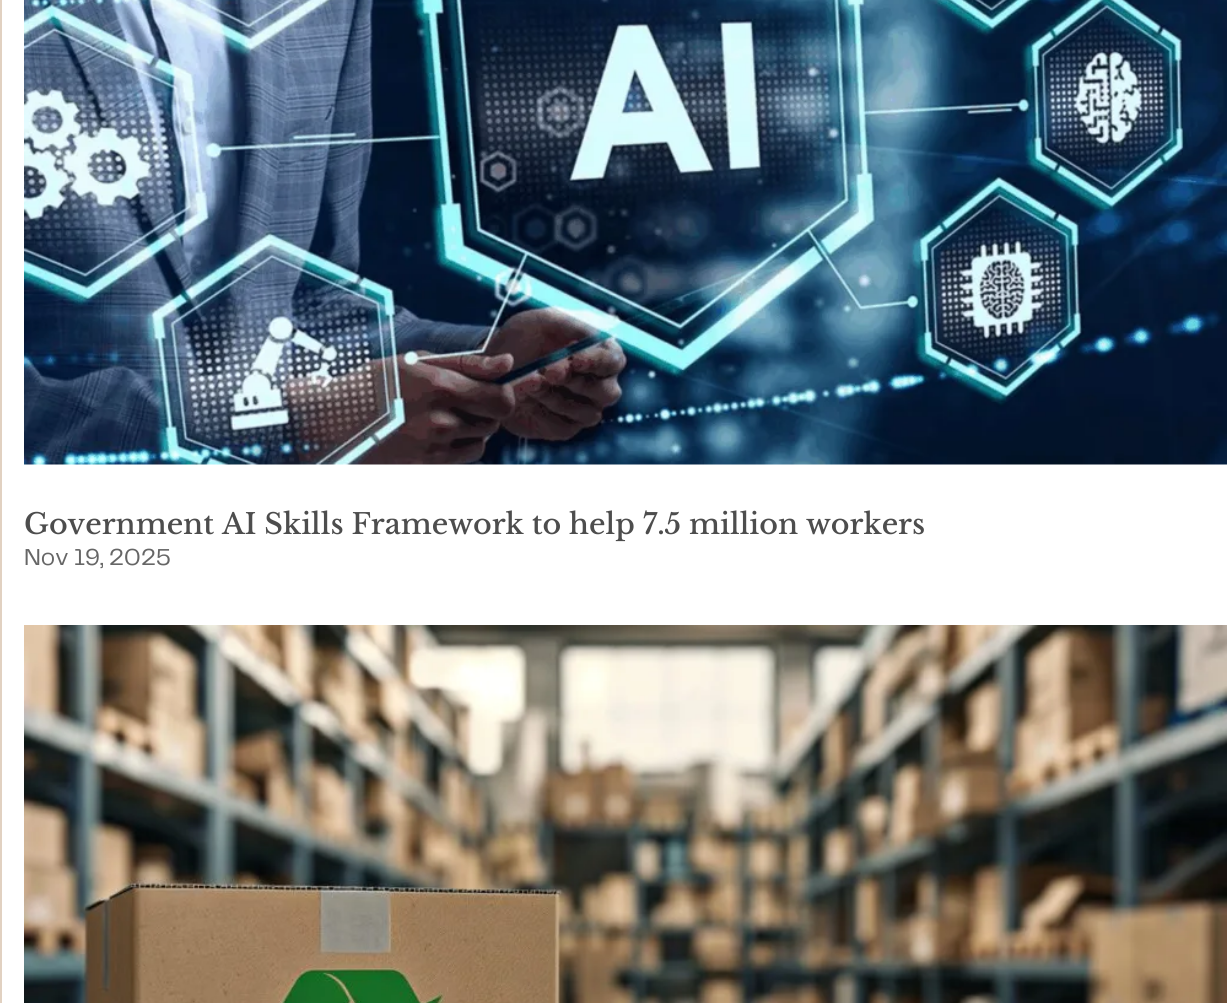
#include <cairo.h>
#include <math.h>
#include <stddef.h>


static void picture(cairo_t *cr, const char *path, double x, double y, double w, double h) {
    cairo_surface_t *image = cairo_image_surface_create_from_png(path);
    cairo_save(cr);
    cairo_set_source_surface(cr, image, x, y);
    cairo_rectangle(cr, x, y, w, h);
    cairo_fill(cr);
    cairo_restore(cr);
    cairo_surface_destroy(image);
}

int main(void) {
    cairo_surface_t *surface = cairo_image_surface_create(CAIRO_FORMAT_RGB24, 1227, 1003);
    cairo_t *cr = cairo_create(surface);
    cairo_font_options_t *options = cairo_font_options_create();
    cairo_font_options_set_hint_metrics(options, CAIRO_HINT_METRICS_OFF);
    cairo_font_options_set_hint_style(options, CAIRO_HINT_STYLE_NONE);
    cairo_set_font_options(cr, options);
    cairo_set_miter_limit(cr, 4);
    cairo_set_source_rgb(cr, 1, 1, 1);
    cairo_paint(cr);
    cairo_set_source_rgb(cr, 0.882, 0.82, 0.757);
    cairo_rectangle(cr, 0, 0, 2, 1003);
    cairo_fill(cr);
    picture(cr, "img1.png", 24, 0, 1203, 465);
    cairo_select_font_face(cr, "Libre Baskerville Medium", CAIRO_FONT_SLANT_NORMAL, CAIRO_FONT_WEIGHT_NORMAL);
    cairo_set_font_size(cr, 28.5);
    cairo_set_source_rgb(cr, 0.302, 0.302, 0.302);
    cairo_move_to(cr, 24, 534);
    cairo_show_text(cr, "Government AI Skills Framework to help 7.5 million workers");
    cairo_select_font_face(cr, "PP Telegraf", CAIRO_FONT_SLANT_NORMAL, CAIRO_FONT_WEIGHT_NORMAL);
    cairo_set_font_size(cr, 24);
    cairo_set_source_rgb(cr, 0.4, 0.4, 0.4);
    cairo_move_to(cr, 24, 565);
    cairo_show_text(cr, "Nov 19, 2025");
    picture(cr, "img2.png", 24, 625, 1203, 378);
    cairo_surface_write_to_png(surface, "page.png");
    cairo_font_options_destroy(options);
    cairo_destroy(cr);
    cairo_surface_destroy(surface);
    return 0;
}
